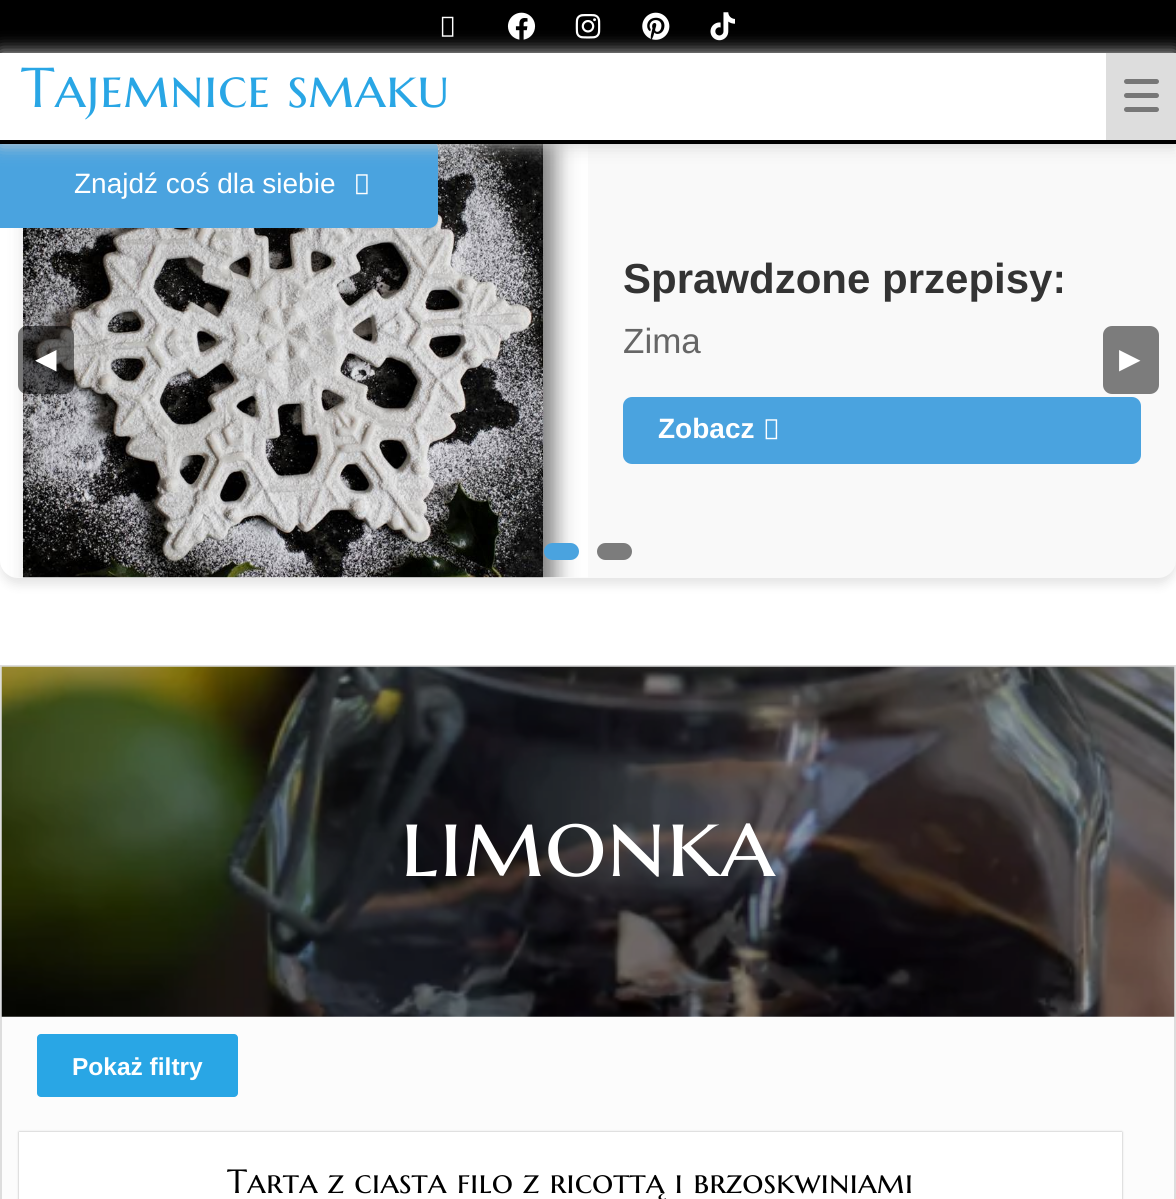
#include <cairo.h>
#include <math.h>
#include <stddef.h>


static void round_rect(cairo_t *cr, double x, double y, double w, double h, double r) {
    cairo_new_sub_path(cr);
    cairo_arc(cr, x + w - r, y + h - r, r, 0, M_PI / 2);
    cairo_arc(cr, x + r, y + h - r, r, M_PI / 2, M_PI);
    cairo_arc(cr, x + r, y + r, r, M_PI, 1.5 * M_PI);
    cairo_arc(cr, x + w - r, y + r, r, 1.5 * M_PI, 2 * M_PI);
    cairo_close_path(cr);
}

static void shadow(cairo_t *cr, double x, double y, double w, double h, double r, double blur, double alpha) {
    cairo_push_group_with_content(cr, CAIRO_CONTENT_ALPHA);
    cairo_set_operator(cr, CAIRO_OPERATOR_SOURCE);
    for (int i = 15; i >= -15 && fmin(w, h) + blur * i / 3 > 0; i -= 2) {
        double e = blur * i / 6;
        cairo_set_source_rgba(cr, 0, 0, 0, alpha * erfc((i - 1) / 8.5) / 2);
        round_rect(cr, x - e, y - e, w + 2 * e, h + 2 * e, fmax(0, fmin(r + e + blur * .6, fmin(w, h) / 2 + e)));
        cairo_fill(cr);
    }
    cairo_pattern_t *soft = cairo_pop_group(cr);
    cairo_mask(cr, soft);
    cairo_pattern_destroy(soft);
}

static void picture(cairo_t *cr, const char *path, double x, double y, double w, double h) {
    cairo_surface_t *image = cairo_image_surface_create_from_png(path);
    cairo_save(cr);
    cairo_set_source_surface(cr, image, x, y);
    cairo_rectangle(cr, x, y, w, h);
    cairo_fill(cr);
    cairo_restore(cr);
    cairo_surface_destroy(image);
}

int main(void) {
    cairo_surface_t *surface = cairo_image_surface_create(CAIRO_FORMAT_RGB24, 1176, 1199);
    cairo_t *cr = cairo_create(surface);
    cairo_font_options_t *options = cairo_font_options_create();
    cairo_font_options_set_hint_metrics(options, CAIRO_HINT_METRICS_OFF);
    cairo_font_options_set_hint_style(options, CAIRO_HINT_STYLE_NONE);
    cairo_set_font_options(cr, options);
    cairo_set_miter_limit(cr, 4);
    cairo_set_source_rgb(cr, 1, 1, 1);
    cairo_paint(cr);
    cairo_set_source_rgb(cr, 0, 0, 0);
    cairo_rectangle(cr, 0, 0, 1176, 53);
    cairo_fill(cr);
    picture(cr, "img1.png", 441, 16, 13, 21);
    picture(cr, "img2.png", 507, 12, 29, 28);
    picture(cr, "img3.png", 575, 14, 26, 25);
    picture(cr, "img4.png", 642, 12, 28, 28);
    picture(cr, "img5.png", 710, 12, 25, 29);
    cairo_set_source_rgb(cr, 0, 0, 0);
    shadow(cr, 0, 147, 1176, 438, 18, 5, 0.1);
    cairo_set_source_rgb(cr, 0.973, 0.973, 0.973);
    round_rect(cr, 0, 140, 1176, 438, 18);
    cairo_fill(cr);
    picture(cr, "img7.png", 0, 144, 588, 434);
    cairo_set_source_rgb(cr, 0.29, 0.639, 0.875);
    cairo_new_path(cr);
    cairo_move_to(cr, 0, 140);
    cairo_line_to(cr, 429, 140);
    cairo_curve_to(cr, 434, 140, 438, 144, 438, 149);
    cairo_line_to(cr, 438, 219);
    cairo_curve_to(cr, 438, 224, 434, 228, 429, 228);
    cairo_line_to(cr, 0, 228);
    cairo_close_path(cr);
    cairo_fill(cr);
    cairo_set_source_rgb(cr, 0.8, 0.8, 0.8);
    shadow(cr, 0, 53, 1176, 91, 0, 9, 1);
    cairo_set_source_rgb(cr, 1, 1, 1);
    cairo_rectangle(cr, 0, 53, 1106, 87);
    cairo_fill(cr);
    cairo_set_source_rgb(cr, 0, 0, 0);
    cairo_rectangle(cr, 0, 140, 1176, 4);
    cairo_fill(cr);
    cairo_select_font_face(cr, "Marcellus SC", CAIRO_FONT_SLANT_NORMAL, CAIRO_FONT_WEIGHT_NORMAL);
    cairo_set_font_size(cr, 56);
    cairo_set_source_rgb(cr, 0.161, 0.651, 0.898);
    cairo_move_to(cr, 21, 107);
    cairo_show_text(cr, "Tajemnice smaku");
    cairo_set_source_rgb(cr, 0.867, 0.867, 0.867);
    cairo_rectangle(cr, 1106, 53, 70, 87);
    cairo_fill(cr);
    cairo_set_source_rgb(cr, 0.467, 0.467, 0.467);
    round_rect(cr, 1124, 79, 35, 5, 2.5);
    cairo_fill(cr);
    round_rect(cr, 1124, 93, 35, 5, 2.5);
    cairo_fill(cr);
    round_rect(cr, 1124, 107, 35, 5, 2.5);
    cairo_fill(cr);
    cairo_select_font_face(cr, "Liberation Sans", CAIRO_FONT_SLANT_NORMAL, CAIRO_FONT_WEIGHT_NORMAL);
    cairo_set_font_size(cr, 28);
    cairo_set_source_rgb(cr, 1, 1, 1);
    cairo_move_to(cr, 74, 193);
    cairo_show_text(cr, "Znajdź coś dla siebie");
    picture(cr, "img6.png", 356, 174, 12, 21);
    cairo_set_source_rgba(cr, 0, 0, 0, 0.5);
    round_rect(cr, 18, 326, 56, 68, 9);
    cairo_fill(cr);
    cairo_select_font_face(cr, "DejaVu Sans", CAIRO_FONT_SLANT_NORMAL, CAIRO_FONT_WEIGHT_NORMAL);
    cairo_set_source_rgb(cr, 1, 1, 1);
    cairo_move_to(cr, 35, 368);
    cairo_show_text(cr, "◀");
    cairo_select_font_face(cr, "Liberation Sans", CAIRO_FONT_SLANT_NORMAL, CAIRO_FONT_WEIGHT_BOLD);
    cairo_set_font_size(cr, 42);
    cairo_set_source_rgb(cr, 0.2, 0.2, 0.2);
    cairo_move_to(cr, 623, 293);
    cairo_show_text(cr, "Sprawdzone przepisy:");
    cairo_select_font_face(cr, "Liberation Sans", CAIRO_FONT_SLANT_NORMAL, CAIRO_FONT_WEIGHT_NORMAL);
    cairo_set_font_size(cr, 35);
    cairo_set_source_rgb(cr, 0.4, 0.4, 0.4);
    cairo_move_to(cr, 623, 353);
    cairo_show_text(cr, "Zima");
    cairo_set_source_rgb(cr, 0.29, 0.639, 0.875);
    round_rect(cr, 623, 397, 518, 67, 9);
    cairo_fill(cr);
    cairo_select_font_face(cr, "Liberation Sans", CAIRO_FONT_SLANT_NORMAL, CAIRO_FONT_WEIGHT_BOLD);
    cairo_set_font_size(cr, 28);
    cairo_set_source_rgb(cr, 1, 1, 1);
    cairo_move_to(cr, 658, 438);
    cairo_show_text(cr, "Zobacz");
    picture(cr, "img8.png", 765, 419, 13, 21);
    cairo_set_source_rgb(cr, 0.486, 0.486, 0.486);
    round_rect(cr, 1103, 326, 56, 68, 9);
    cairo_fill(cr);
    cairo_select_font_face(cr, "DejaVu Sans", CAIRO_FONT_SLANT_NORMAL, CAIRO_FONT_WEIGHT_NORMAL);
    cairo_set_source_rgb(cr, 1, 1, 1);
    cairo_move_to(cr, 1119, 368);
    cairo_show_text(cr, "▶");
    cairo_set_source_rgb(cr, 0.29, 0.639, 0.875);
    round_rect(cr, 544, 543, 35, 17, 8.5);
    cairo_fill(cr);
    cairo_set_source_rgb(cr, 0.486, 0.486, 0.486);
    round_rect(cr, 597, 543, 35, 17, 8.5);
    cairo_fill(cr);
    cairo_set_source_rgb(cr, 0.988, 0.988, 0.988);
    cairo_rectangle(cr, 2, 1016, 1172, 183);
    cairo_fill(cr);
    cairo_rectangle(cr, 1, 666, 1174, 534);
    cairo_set_source_rgb(cr, 0.867, 0.867, 0.867);
    cairo_stroke(cr);
    picture(cr, "img9.png", 1, 666, 1174, 351);
    cairo_select_font_face(cr, "Marcellus SC", CAIRO_FONT_SLANT_NORMAL, CAIRO_FONT_WEIGHT_NORMAL);
    cairo_set_font_size(cr, 98);
    cairo_set_source_rgb(cr, 1, 1, 1);
    cairo_move_to(cr, 400, 876);
    cairo_show_text(cr, "limonka");
    cairo_set_source_rgb(cr, 0.161, 0.651, 0.898);
    round_rect(cr, 37, 1034, 201, 63, 4);
    cairo_fill(cr);
    cairo_select_font_face(cr, "Liberation Sans", CAIRO_FONT_SLANT_NORMAL, CAIRO_FONT_WEIGHT_BOLD);
    cairo_set_font_size(cr, 24.5);
    cairo_set_source_rgb(cr, 1, 1, 1);
    cairo_move_to(cr, 72, 1075);
    cairo_show_text(cr, "Pokaż filtry");
    cairo_set_source_rgb(cr, 0.667, 0.667, 0.667);
    shadow(cr, 19, 1132, 1103, 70, 0, 1, 1);
    cairo_set_source_rgb(cr, 1, 1, 1);
    cairo_rectangle(cr, 19, 1132, 1103, 67);
    cairo_fill(cr);
    cairo_select_font_face(cr, "Marcellus SC", CAIRO_FONT_SLANT_NORMAL, CAIRO_FONT_WEIGHT_NORMAL);
    cairo_set_font_size(cr, 33.6);
    cairo_set_source_rgb(cr, 0, 0, 0);
    cairo_move_to(cr, 227, 1193);
    cairo_show_text(cr, "Tarta z ciasta filo z ricottą i brzoskwiniami");
    cairo_surface_write_to_png(surface, "page.png");
    cairo_font_options_destroy(options);
    cairo_destroy(cr);
    cairo_surface_destroy(surface);
    return 0;
}
